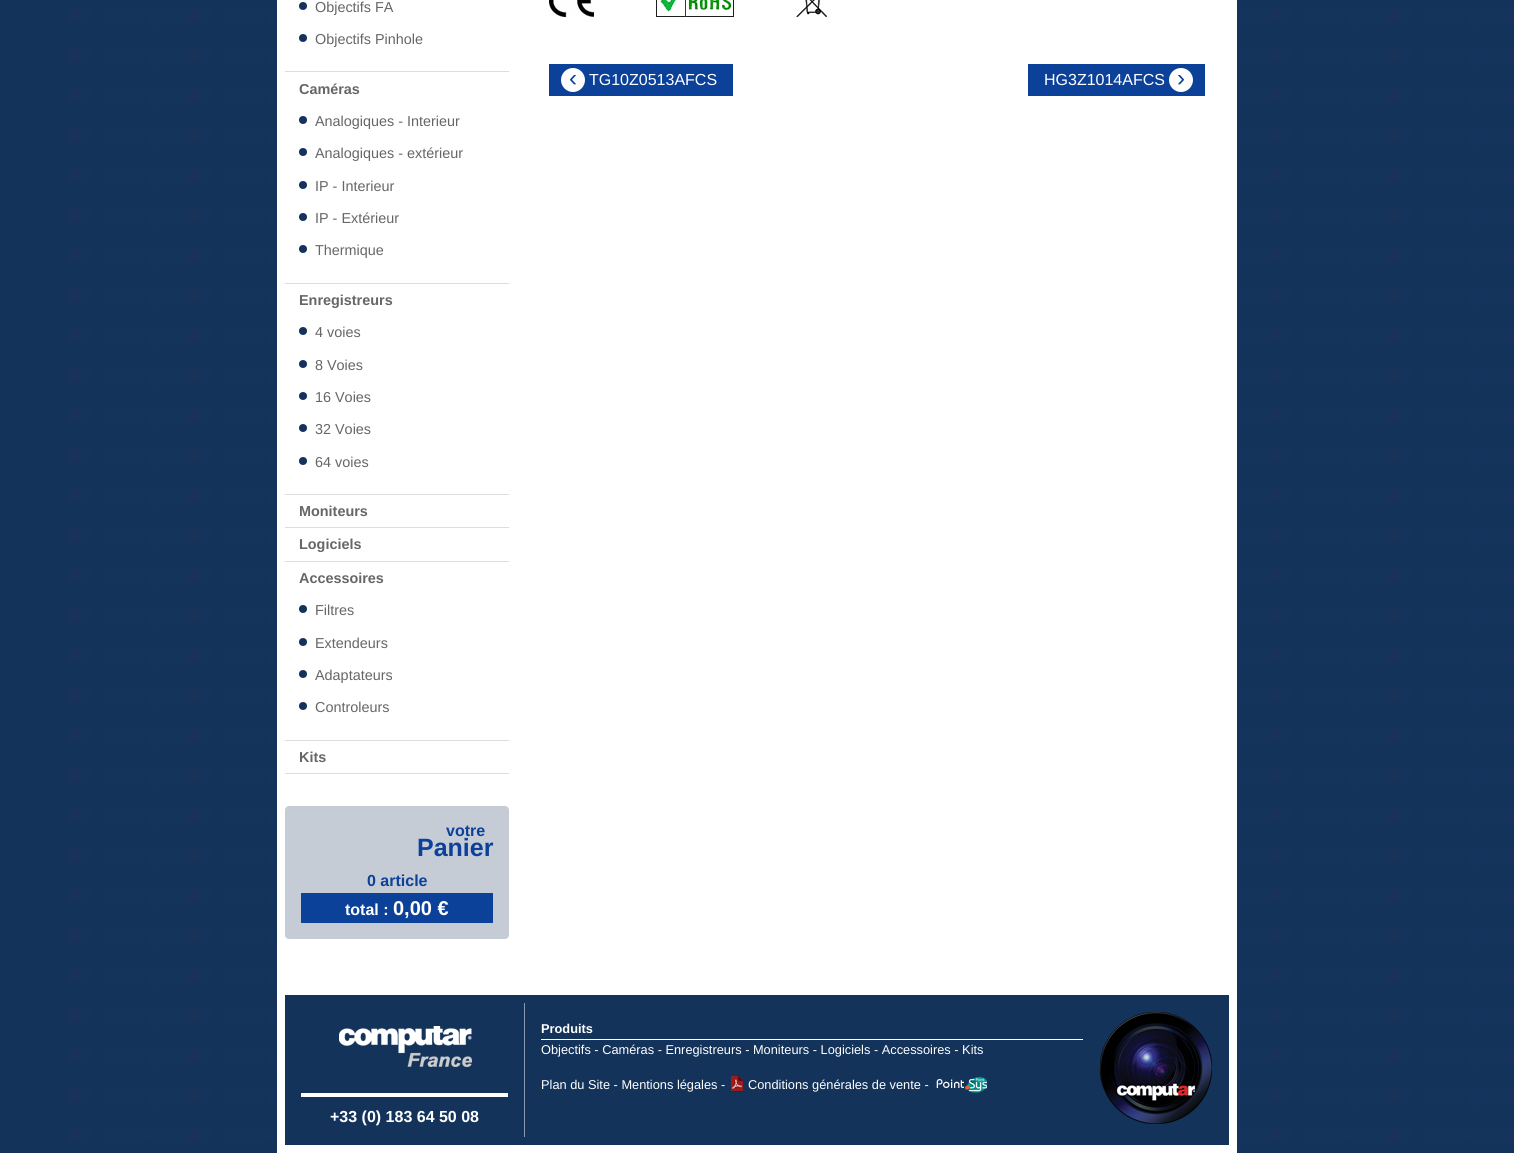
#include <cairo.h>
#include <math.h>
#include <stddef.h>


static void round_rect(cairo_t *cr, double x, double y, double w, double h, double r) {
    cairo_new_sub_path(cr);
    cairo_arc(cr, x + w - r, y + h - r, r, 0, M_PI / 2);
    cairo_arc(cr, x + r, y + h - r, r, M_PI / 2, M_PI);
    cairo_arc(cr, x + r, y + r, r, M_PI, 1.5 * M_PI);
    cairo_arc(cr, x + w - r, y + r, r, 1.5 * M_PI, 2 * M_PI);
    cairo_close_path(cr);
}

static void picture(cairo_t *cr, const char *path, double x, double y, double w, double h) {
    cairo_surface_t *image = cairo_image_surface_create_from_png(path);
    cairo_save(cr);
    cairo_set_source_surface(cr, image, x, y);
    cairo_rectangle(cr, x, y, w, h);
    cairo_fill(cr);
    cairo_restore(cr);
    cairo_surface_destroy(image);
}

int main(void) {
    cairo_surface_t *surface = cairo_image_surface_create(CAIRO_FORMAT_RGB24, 1514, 1153);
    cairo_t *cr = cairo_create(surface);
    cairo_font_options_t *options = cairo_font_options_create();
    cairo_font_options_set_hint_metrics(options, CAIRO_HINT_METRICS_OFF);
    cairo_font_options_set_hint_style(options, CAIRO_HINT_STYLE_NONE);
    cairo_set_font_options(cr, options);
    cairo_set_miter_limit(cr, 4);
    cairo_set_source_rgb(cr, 0.082, 0.2, 0.357);
    cairo_paint(cr);
    picture(cr, "img1.png", 68, 9, 1446, 1133);
    cairo_set_source_rgb(cr, 1, 1, 1);
    cairo_rectangle(cr, 277, 0, 960, 1153);
    cairo_fill(cr);
    cairo_set_source_rgb(cr, 0.867, 0.867, 0.867);
    cairo_rectangle(cr, 285, 71, 224, 1);
    cairo_fill(cr);
    cairo_set_source_rgb(cr, 0.082, 0.2, 0.357);
    cairo_arc(cr, 303, 6, 4, 0, 2 * M_PI);
    cairo_fill(cr);
    cairo_select_font_face(cr, "Liberation Sans", CAIRO_FONT_SLANT_NORMAL, CAIRO_FONT_WEIGHT_NORMAL);
    cairo_set_font_size(cr, 14.4);
    cairo_set_source_rgb(cr, 0.4, 0.4, 0.4);
    cairo_move_to(cr, 315, 12);
    cairo_show_text(cr, "Objectifs FA");
    cairo_set_source_rgb(cr, 0.082, 0.2, 0.357);
    cairo_new_path(cr);
    cairo_arc(cr, 303, 38, 4, 0, 2 * M_PI);
    cairo_fill(cr);
    cairo_set_source_rgb(cr, 0.4, 0.4, 0.4);
    cairo_move_to(cr, 315, 44);
    cairo_show_text(cr, "Objectifs Pinhole");
    cairo_set_source_rgb(cr, 0.867, 0.867, 0.867);
    cairo_rectangle(cr, 285, 283, 224, 1);
    cairo_fill(cr);
    cairo_select_font_face(cr, "Liberation Sans", CAIRO_FONT_SLANT_NORMAL, CAIRO_FONT_WEIGHT_BOLD);
    cairo_set_source_rgb(cr, 0.4, 0.4, 0.4);
    cairo_move_to(cr, 299, 94);
    cairo_show_text(cr, "Caméras");
    cairo_set_source_rgb(cr, 0.082, 0.2, 0.357);
    cairo_new_path(cr);
    cairo_arc(cr, 303, 120, 4, 0, 2 * M_PI);
    cairo_fill(cr);
    cairo_select_font_face(cr, "Liberation Sans", CAIRO_FONT_SLANT_NORMAL, CAIRO_FONT_WEIGHT_NORMAL);
    cairo_set_source_rgb(cr, 0.4, 0.4, 0.4);
    cairo_move_to(cr, 315, 126);
    cairo_show_text(cr, "Analogiques - Interieur");
    cairo_set_source_rgb(cr, 0.082, 0.2, 0.357);
    cairo_new_path(cr);
    cairo_arc(cr, 303, 152, 4, 0, 2 * M_PI);
    cairo_fill(cr);
    cairo_set_source_rgb(cr, 0.4, 0.4, 0.4);
    cairo_move_to(cr, 315, 158);
    cairo_show_text(cr, "Analogiques - extérieur");
    cairo_set_source_rgb(cr, 0.082, 0.2, 0.357);
    cairo_new_path(cr);
    cairo_arc(cr, 303, 185, 4, 0, 2 * M_PI);
    cairo_fill(cr);
    cairo_set_source_rgb(cr, 0.4, 0.4, 0.4);
    cairo_move_to(cr, 315, 191);
    cairo_show_text(cr, "IP - Interieur");
    cairo_set_source_rgb(cr, 0.082, 0.2, 0.357);
    cairo_new_path(cr);
    cairo_arc(cr, 303, 217, 4, 0, 2 * M_PI);
    cairo_fill(cr);
    cairo_set_source_rgb(cr, 0.4, 0.4, 0.4);
    cairo_move_to(cr, 315, 223);
    cairo_show_text(cr, "IP - Extérieur");
    cairo_set_source_rgb(cr, 0.082, 0.2, 0.357);
    cairo_new_path(cr);
    cairo_arc(cr, 303, 249, 4, 0, 2 * M_PI);
    cairo_fill(cr);
    cairo_set_source_rgb(cr, 0.4, 0.4, 0.4);
    cairo_move_to(cr, 315, 255);
    cairo_show_text(cr, "Thermique");
    cairo_set_source_rgb(cr, 0.867, 0.867, 0.867);
    cairo_rectangle(cr, 285, 494, 224, 1);
    cairo_fill(cr);
    cairo_select_font_face(cr, "Liberation Sans", CAIRO_FONT_SLANT_NORMAL, CAIRO_FONT_WEIGHT_BOLD);
    cairo_set_source_rgb(cr, 0.4, 0.4, 0.4);
    cairo_move_to(cr, 299, 305);
    cairo_show_text(cr, "Enregistreurs");
    cairo_set_source_rgb(cr, 0.082, 0.2, 0.357);
    cairo_new_path(cr);
    cairo_arc(cr, 303, 331, 4, 0, 2 * M_PI);
    cairo_fill(cr);
    cairo_select_font_face(cr, "Liberation Sans", CAIRO_FONT_SLANT_NORMAL, CAIRO_FONT_WEIGHT_NORMAL);
    cairo_set_source_rgb(cr, 0.4, 0.4, 0.4);
    cairo_move_to(cr, 315, 337);
    cairo_show_text(cr, "4 voies");
    cairo_set_source_rgb(cr, 0.082, 0.2, 0.357);
    cairo_new_path(cr);
    cairo_arc(cr, 303, 364, 4, 0, 2 * M_PI);
    cairo_fill(cr);
    cairo_set_source_rgb(cr, 0.4, 0.4, 0.4);
    cairo_move_to(cr, 315, 370);
    cairo_show_text(cr, "8 Voies");
    cairo_set_source_rgb(cr, 0.082, 0.2, 0.357);
    cairo_new_path(cr);
    cairo_arc(cr, 303, 396, 4, 0, 2 * M_PI);
    cairo_fill(cr);
    cairo_set_source_rgb(cr, 0.4, 0.4, 0.4);
    cairo_move_to(cr, 315, 402);
    cairo_show_text(cr, "16 Voies");
    cairo_set_source_rgb(cr, 0.082, 0.2, 0.357);
    cairo_new_path(cr);
    cairo_arc(cr, 303, 428, 4, 0, 2 * M_PI);
    cairo_fill(cr);
    cairo_set_source_rgb(cr, 0.4, 0.4, 0.4);
    cairo_move_to(cr, 315, 434);
    cairo_show_text(cr, "32 Voies");
    cairo_set_source_rgb(cr, 0.082, 0.2, 0.357);
    cairo_new_path(cr);
    cairo_arc(cr, 303, 461, 4, 0, 2 * M_PI);
    cairo_fill(cr);
    cairo_set_source_rgb(cr, 0.4, 0.4, 0.4);
    cairo_move_to(cr, 315, 467);
    cairo_show_text(cr, "64 voies");
    cairo_set_source_rgb(cr, 0.867, 0.867, 0.867);
    cairo_rectangle(cr, 285, 527, 224, 1);
    cairo_fill(cr);
    cairo_select_font_face(cr, "Liberation Sans", CAIRO_FONT_SLANT_NORMAL, CAIRO_FONT_WEIGHT_BOLD);
    cairo_set_source_rgb(cr, 0.4, 0.4, 0.4);
    cairo_move_to(cr, 299, 516);
    cairo_show_text(cr, "Moniteurs");
    cairo_set_source_rgb(cr, 0.867, 0.867, 0.867);
    cairo_rectangle(cr, 285, 561, 224, 1);
    cairo_fill(cr);
    cairo_set_source_rgb(cr, 0.4, 0.4, 0.4);
    cairo_move_to(cr, 299, 549);
    cairo_show_text(cr, "Logiciels");
    cairo_set_source_rgb(cr, 0.867, 0.867, 0.867);
    cairo_rectangle(cr, 285, 740, 224, 1);
    cairo_fill(cr);
    cairo_set_source_rgb(cr, 0.4, 0.4, 0.4);
    cairo_move_to(cr, 299, 583);
    cairo_show_text(cr, "Accessoires");
    cairo_set_source_rgb(cr, 0.082, 0.2, 0.357);
    cairo_new_path(cr);
    cairo_arc(cr, 303, 609, 4, 0, 2 * M_PI);
    cairo_fill(cr);
    cairo_select_font_face(cr, "Liberation Sans", CAIRO_FONT_SLANT_NORMAL, CAIRO_FONT_WEIGHT_NORMAL);
    cairo_set_source_rgb(cr, 0.4, 0.4, 0.4);
    cairo_move_to(cr, 315, 615);
    cairo_show_text(cr, "Filtres");
    cairo_set_source_rgb(cr, 0.082, 0.2, 0.357);
    cairo_new_path(cr);
    cairo_arc(cr, 303, 642, 4, 0, 2 * M_PI);
    cairo_fill(cr);
    cairo_set_source_rgb(cr, 0.4, 0.4, 0.4);
    cairo_move_to(cr, 315, 648);
    cairo_show_text(cr, "Extendeurs");
    cairo_set_source_rgb(cr, 0.082, 0.2, 0.357);
    cairo_new_path(cr);
    cairo_arc(cr, 303, 674, 4, 0, 2 * M_PI);
    cairo_fill(cr);
    cairo_set_source_rgb(cr, 0.4, 0.4, 0.4);
    cairo_move_to(cr, 315, 680);
    cairo_show_text(cr, "Adaptateurs");
    cairo_set_source_rgb(cr, 0.082, 0.2, 0.357);
    cairo_new_path(cr);
    cairo_arc(cr, 303, 706, 4, 0, 2 * M_PI);
    cairo_fill(cr);
    cairo_set_source_rgb(cr, 0.4, 0.4, 0.4);
    cairo_move_to(cr, 315, 712);
    cairo_show_text(cr, "Controleurs");
    cairo_set_source_rgb(cr, 0.867, 0.867, 0.867);
    cairo_rectangle(cr, 285, 773, 224, 1);
    cairo_fill(cr);
    cairo_select_font_face(cr, "Liberation Sans", CAIRO_FONT_SLANT_NORMAL, CAIRO_FONT_WEIGHT_BOLD);
    cairo_set_source_rgb(cr, 0.4, 0.4, 0.4);
    cairo_move_to(cr, 299, 762);
    cairo_show_text(cr, "Kits");
    cairo_set_source_rgb(cr, 0.773, 0.8, 0.839);
    round_rect(cr, 285, 806, 224, 133, 4);
    cairo_fill(cr);
    cairo_set_font_size(cr, 16);
    cairo_set_source_rgb(cr, 0.047, 0.255, 0.604);
    cairo_move_to(cr, 446, 836);
    cairo_show_text(cr, "votre");
    cairo_set_font_size(cr, 25);
    cairo_move_to(cr, 417, 856);
    cairo_show_text(cr, "Panier");
    cairo_set_font_size(cr, 16);
    cairo_move_to(cr, 367, 886);
    cairo_show_text(cr, "0 article");
    cairo_rectangle(cr, 301, 893, 192, 30);
    cairo_fill(cr);
    cairo_set_source_rgb(cr, 1, 1, 1);
    cairo_move_to(cr, 345, 915);
    cairo_show_text(cr, "total :");
    cairo_set_font_size(cr, 20);
    cairo_move_to(cr, 393, 915);
    cairo_show_text(cr, "0,00 €");
    picture(cr, "img2.png", 549, 0, 45, 17);
    picture(cr, "img3.png", 656, 0, 78, 17);
    picture(cr, "img4.png", 796, 0, 31, 17);
    cairo_set_source_rgb(cr, 0.047, 0.255, 0.604);
    cairo_rectangle(cr, 549, 64, 184, 32);
    cairo_fill(cr);
    cairo_set_source_rgb(cr, 1, 1, 1);
    cairo_arc(cr, 573, 80, 12, 0, 2 * M_PI);
    cairo_fill(cr);
    cairo_select_font_face(cr, "Liberation Sans", CAIRO_FONT_SLANT_NORMAL, CAIRO_FONT_WEIGHT_NORMAL);
    cairo_set_font_size(cr, 24);
    cairo_set_source_rgb(cr, 0.047, 0.255, 0.604);
    cairo_move_to(cr, 569, 86);
    cairo_show_text(cr, "‹");
    cairo_set_font_size(cr, 16);
    cairo_set_source_rgb(cr, 1, 1, 1);
    cairo_move_to(cr, 589, 85);
    cairo_show_text(cr, "TG10Z0513AFCS");
    cairo_set_source_rgb(cr, 0.047, 0.255, 0.604);
    cairo_rectangle(cr, 1028, 64, 177, 32);
    cairo_fill(cr);
    cairo_set_source_rgb(cr, 1, 1, 1);
    cairo_move_to(cr, 1044, 85);
    cairo_show_text(cr, "HG3Z1014AFCS");
    cairo_new_path(cr);
    cairo_arc(cr, 1181, 80, 12, 0, 2 * M_PI);
    cairo_fill(cr);
    cairo_set_font_size(cr, 24);
    cairo_set_source_rgb(cr, 0.047, 0.255, 0.604);
    cairo_move_to(cr, 1177, 86);
    cairo_show_text(cr, "›");
    cairo_set_source_rgb(cr, 0.082, 0.2, 0.357);
    cairo_rectangle(cr, 285, 995, 944, 150);
    cairo_fill(cr);
    cairo_set_source_rgb(cr, 1, 1, 1);
    cairo_rectangle(cr, 541, 1039, 542, 1);
    cairo_fill(cr);
    cairo_select_font_face(cr, "Liberation Sans", CAIRO_FONT_SLANT_NORMAL, CAIRO_FONT_WEIGHT_BOLD);
    cairo_set_font_size(cr, 12.8);
    cairo_move_to(cr, 541, 1033);
    cairo_show_text(cr, "Produits");
    cairo_select_font_face(cr, "Liberation Sans", CAIRO_FONT_SLANT_NORMAL, CAIRO_FONT_WEIGHT_NORMAL);
    cairo_move_to(cr, 541, 1054);
    cairo_show_text(cr, "Objectifs - Caméras - Enregistreurs - Moniteurs - Logiciels - Accessoires - Kits");
    cairo_move_to(cr, 541, 1089);
    cairo_show_text(cr, "Plan du Site - Mentions légales -");
    picture(cr, "img5.png", 730, 1076, 13, 16);
    cairo_move_to(cr, 748, 1089);
    cairo_show_text(cr, "Conditions générales de vente -");
    picture(cr, "img6.png", 936, 1077, 51, 16);
    picture(cr, "img7.png", 1100, 1012, 112, 112);
    cairo_set_source_rgb(cr, 0.541, 0.6, 0.678);
    cairo_rectangle(cr, 524, 1003, 1, 134);
    cairo_fill(cr);
    picture(cr, "img8.png", 339, 1026, 133, 41);
    cairo_set_source_rgb(cr, 1, 1, 1);
    cairo_rectangle(cr, 301, 1093, 207, 4);
    cairo_fill(cr);
    cairo_select_font_face(cr, "Liberation Sans", CAIRO_FONT_SLANT_NORMAL, CAIRO_FONT_WEIGHT_BOLD);
    cairo_set_font_size(cr, 16);
    cairo_move_to(cr, 330, 1122);
    cairo_show_text(cr, "+33 (0) 183 64 50 08");
    cairo_surface_write_to_png(surface, "page.png");
    cairo_font_options_destroy(options);
    cairo_destroy(cr);
    cairo_surface_destroy(surface);
    return 0;
}
